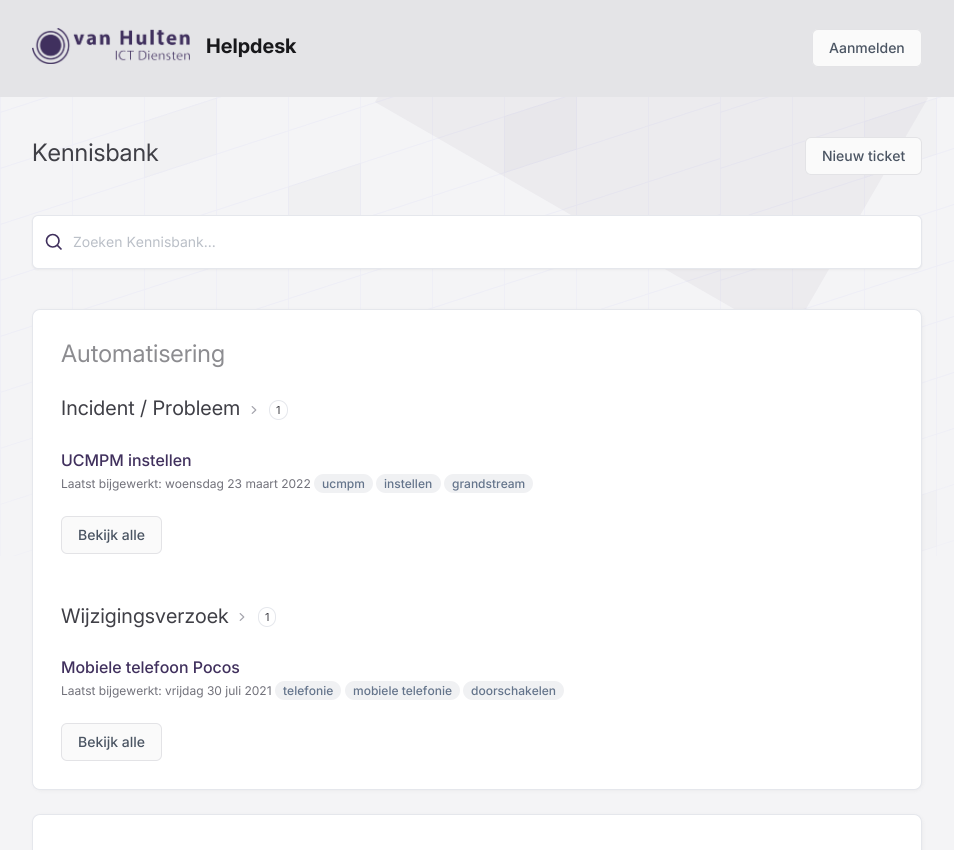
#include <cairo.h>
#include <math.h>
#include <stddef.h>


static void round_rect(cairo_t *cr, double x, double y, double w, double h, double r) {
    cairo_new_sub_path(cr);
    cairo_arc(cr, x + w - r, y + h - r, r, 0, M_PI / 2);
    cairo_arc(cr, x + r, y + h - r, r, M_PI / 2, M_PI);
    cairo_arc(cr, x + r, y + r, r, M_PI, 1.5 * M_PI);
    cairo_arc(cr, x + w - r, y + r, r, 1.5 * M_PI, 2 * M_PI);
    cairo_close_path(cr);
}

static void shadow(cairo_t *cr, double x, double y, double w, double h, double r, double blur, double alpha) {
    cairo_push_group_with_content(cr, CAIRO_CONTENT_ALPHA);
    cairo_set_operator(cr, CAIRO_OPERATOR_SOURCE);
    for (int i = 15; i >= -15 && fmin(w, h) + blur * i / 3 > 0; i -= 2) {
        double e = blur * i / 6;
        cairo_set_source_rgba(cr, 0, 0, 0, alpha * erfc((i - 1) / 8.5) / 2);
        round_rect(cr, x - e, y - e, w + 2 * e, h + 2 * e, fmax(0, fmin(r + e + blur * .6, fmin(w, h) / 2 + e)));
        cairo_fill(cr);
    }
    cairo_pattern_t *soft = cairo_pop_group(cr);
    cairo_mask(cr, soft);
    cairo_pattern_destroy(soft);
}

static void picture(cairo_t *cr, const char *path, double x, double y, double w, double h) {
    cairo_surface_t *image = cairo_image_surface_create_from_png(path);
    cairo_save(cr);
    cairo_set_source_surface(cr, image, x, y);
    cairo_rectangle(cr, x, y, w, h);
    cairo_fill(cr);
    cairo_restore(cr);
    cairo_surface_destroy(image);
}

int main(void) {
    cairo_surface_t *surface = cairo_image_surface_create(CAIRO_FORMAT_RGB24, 954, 850);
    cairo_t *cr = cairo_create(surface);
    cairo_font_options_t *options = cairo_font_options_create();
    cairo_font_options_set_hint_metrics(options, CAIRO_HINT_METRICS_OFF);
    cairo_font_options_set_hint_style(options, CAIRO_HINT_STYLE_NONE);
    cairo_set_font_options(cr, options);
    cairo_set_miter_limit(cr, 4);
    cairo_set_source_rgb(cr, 0.957, 0.957, 0.961);
    cairo_paint(cr);
    picture(cr, "img1.png", 0, 97, 954, 459);
    cairo_set_source_rgba(cr, 0.251, 0.188, 0.365, 0.05);
    cairo_new_path(cr);
    cairo_move_to(cr, 515, -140);
    cairo_line_to(cr, 928, 98);
    cairo_line_to(cr, 788, 340);
    cairo_line_to(cr, 375, 102);
    cairo_close_path(cr);
    cairo_fill(cr);
    cairo_set_source_rgb(cr, 0.894, 0.894, 0.906);
    cairo_rectangle(cr, 0, 0, 954, 97);
    cairo_fill(cr);
    picture(cr, "img2.png", 32, 28, 158, 36);
    cairo_select_font_face(cr, "Inter", CAIRO_FONT_SLANT_NORMAL, CAIRO_FONT_WEIGHT_BOLD);
    cairo_set_font_size(cr, 20);
    cairo_set_source_rgb(cr, 0.094, 0.094, 0.106);
    cairo_move_to(cr, 206, 53);
    cairo_show_text(cr, "Helpdesk");
    cairo_set_source_rgb(cr, 0.98, 0.98, 0.98);
    round_rect(cr, 812, 29, 110, 38, 6);
    cairo_fill(cr);
    round_rect(cr, 812.5, 29.5, 109, 37, 5.5);
    cairo_set_source_rgba(cr, 0.831, 0.831, 0.847, 0.6);
    cairo_set_line_width(cr, 1);
    cairo_stroke(cr);
    cairo_select_font_face(cr, "Inter Medium", CAIRO_FONT_SLANT_NORMAL, CAIRO_FONT_WEIGHT_NORMAL);
    cairo_set_font_size(cr, 14);
    cairo_set_source_rgb(cr, 0.294, 0.333, 0.388);
    cairo_move_to(cr, 829, 53);
    cairo_show_text(cr, "Aanmelden");
    cairo_select_font_face(cr, "Inter", CAIRO_FONT_SLANT_NORMAL, CAIRO_FONT_WEIGHT_NORMAL);
    cairo_set_font_size(cr, 24);
    cairo_set_source_rgb(cr, 0.247, 0.247, 0.275);
    cairo_move_to(cr, 32, 161);
    cairo_show_text(cr, "Kennisbank");
    cairo_set_source_rgb(cr, 0.98, 0.98, 0.98);
    round_rect(cr, 805, 137, 117, 38, 6);
    cairo_fill(cr);
    round_rect(cr, 805.5, 137.5, 116, 37, 5.5);
    cairo_set_source_rgba(cr, 0.831, 0.831, 0.847, 0.6);
    cairo_stroke(cr);
    cairo_select_font_face(cr, "Inter Medium", CAIRO_FONT_SLANT_NORMAL, CAIRO_FONT_WEIGHT_NORMAL);
    cairo_set_font_size(cr, 14);
    cairo_set_source_rgb(cr, 0.294, 0.333, 0.388);
    cairo_move_to(cr, 822, 161);
    cairo_show_text(cr, "Nieuw ticket");
    cairo_set_source_rgb(cr, 0, 0, 0);
    shadow(cr, 32, 216, 890, 54, 6, 1, 0.05);
    cairo_set_source_rgb(cr, 1, 1, 1);
    round_rect(cr, 32.5, 215.5, 889, 53, 5.5);
    cairo_fill_preserve(cr);
    cairo_set_source_rgb(cr, 0.898, 0.906, 0.922);
    cairo_stroke(cr);
    picture(cr, "img3.png", 45, 233, 17, 17);
    cairo_select_font_face(cr, "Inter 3", CAIRO_FONT_SLANT_NORMAL, CAIRO_FONT_WEIGHT_NORMAL);
    cairo_set_source_rgb(cr, 0.729, 0.749, 0.78);
    cairo_move_to(cr, 73, 247);
    cairo_show_text(cr, "Zoeken Kennisbank...");
    cairo_set_source_rgb(cr, 0, 0, 0);
    shadow(cr, 34, 311, 888, 479, 7, 2.5, 0.06);
    cairo_set_source_rgb(cr, 1, 1, 1);
    round_rect(cr, 32.5, 309.5, 889, 480, 7.5);
    cairo_fill_preserve(cr);
    cairo_set_source_rgb(cr, 0.898, 0.906, 0.922);
    cairo_stroke(cr);
    cairo_select_font_face(cr, "Inter", CAIRO_FONT_SLANT_NORMAL, CAIRO_FONT_WEIGHT_NORMAL);
    cairo_set_font_size(cr, 24);
    cairo_set_source_rgb(cr, 0.549, 0.549, 0.565);
    cairo_move_to(cr, 61, 362);
    cairo_show_text(cr, "Automatisering");
    cairo_select_font_face(cr, "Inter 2", CAIRO_FONT_SLANT_NORMAL, CAIRO_FONT_WEIGHT_NORMAL);
    cairo_set_font_size(cr, 20);
    cairo_set_source_rgb(cr, 0.247, 0.247, 0.275);
    cairo_move_to(cr, 61, 415);
    cairo_show_text(cr, "Incident / Probleem");
    picture(cr, "img4.png", 251, 406, 6, 8);
    round_rect(cr, 269.5, 400.5, 18, 19, 9);
    cairo_set_source_rgb(cr, 0.898, 0.906, 0.922);
    cairo_stroke(cr);
    cairo_select_font_face(cr, "Inter 3", CAIRO_FONT_SLANT_NORMAL, CAIRO_FONT_WEIGHT_NORMAL);
    cairo_set_font_size(cr, 11);
    cairo_set_source_rgb(cr, 0.247, 0.247, 0.275);
    cairo_move_to(cr, 276, 414);
    cairo_show_text(cr, "1");
    cairo_select_font_face(cr, "Inter 2 Medium", CAIRO_FONT_SLANT_NORMAL, CAIRO_FONT_WEIGHT_NORMAL);
    cairo_set_font_size(cr, 16);
    cairo_set_source_rgb(cr, 0.251, 0.188, 0.365);
    cairo_move_to(cr, 61, 466);
    cairo_show_text(cr, "UCMPM instellen");
    cairo_select_font_face(cr, "Inter 3", CAIRO_FONT_SLANT_NORMAL, CAIRO_FONT_WEIGHT_NORMAL);
    cairo_set_font_size(cr, 12);
    cairo_set_source_rgb(cr, 0.443, 0.443, 0.478);
    cairo_move_to(cr, 61, 488);
    cairo_show_text(cr, "Laatst bijgewerkt: woensdag 23 maart 2022");
    cairo_set_source_rgb(cr, 0.941, 0.945, 0.953);
    round_rect(cr, 314, 474, 59, 19, 9.5);
    cairo_fill(cr);
    cairo_select_font_face(cr, "Inter Medium", CAIRO_FONT_SLANT_NORMAL, CAIRO_FONT_WEIGHT_NORMAL);
    cairo_set_source_rgb(cr, 0.392, 0.455, 0.545);
    cairo_move_to(cr, 322, 488);
    cairo_show_text(cr, "ucmpm");
    cairo_set_source_rgb(cr, 0.941, 0.945, 0.953);
    round_rect(cr, 376, 474, 65, 19, 9.5);
    cairo_fill(cr);
    cairo_set_source_rgb(cr, 0.392, 0.455, 0.545);
    cairo_move_to(cr, 384, 488);
    cairo_show_text(cr, "instellen");
    cairo_set_source_rgb(cr, 0.941, 0.945, 0.953);
    round_rect(cr, 444, 474, 89, 19, 9.5);
    cairo_fill(cr);
    cairo_set_source_rgb(cr, 0.392, 0.455, 0.545);
    cairo_move_to(cr, 452, 488);
    cairo_show_text(cr, "grandstream");
    cairo_set_source_rgb(cr, 0.98, 0.98, 0.98);
    round_rect(cr, 61.5, 516.5, 100, 37, 5.5);
    cairo_fill_preserve(cr);
    cairo_set_source_rgb(cr, 0.89, 0.89, 0.902);
    cairo_stroke(cr);
    cairo_set_font_size(cr, 14);
    cairo_set_source_rgb(cr, 0.294, 0.333, 0.388);
    cairo_move_to(cr, 78, 540);
    cairo_show_text(cr, "Bekijk alle");
    cairo_select_font_face(cr, "Inter 2", CAIRO_FONT_SLANT_NORMAL, CAIRO_FONT_WEIGHT_NORMAL);
    cairo_set_font_size(cr, 20);
    cairo_set_source_rgb(cr, 0.247, 0.247, 0.275);
    cairo_move_to(cr, 61, 623);
    cairo_show_text(cr, "Wijzigingsverzoek");
    picture(cr, "img4.png", 239, 613, 6, 8);
    round_rect(cr, 258.5, 607.5, 17, 19, 8.5);
    cairo_set_source_rgb(cr, 0.898, 0.906, 0.922);
    cairo_stroke(cr);
    cairo_select_font_face(cr, "Inter 3", CAIRO_FONT_SLANT_NORMAL, CAIRO_FONT_WEIGHT_NORMAL);
    cairo_set_font_size(cr, 11);
    cairo_set_source_rgb(cr, 0.247, 0.247, 0.275);
    cairo_move_to(cr, 265, 621);
    cairo_show_text(cr, "1");
    cairo_select_font_face(cr, "Inter 2 Medium", CAIRO_FONT_SLANT_NORMAL, CAIRO_FONT_WEIGHT_NORMAL);
    cairo_set_font_size(cr, 16);
    cairo_set_source_rgb(cr, 0.251, 0.188, 0.365);
    cairo_move_to(cr, 61, 673);
    cairo_show_text(cr, "Mobiele telefoon Pocos");
    cairo_select_font_face(cr, "Inter 3", CAIRO_FONT_SLANT_NORMAL, CAIRO_FONT_WEIGHT_NORMAL);
    cairo_set_font_size(cr, 12);
    cairo_set_source_rgb(cr, 0.443, 0.443, 0.478);
    cairo_move_to(cr, 61, 695);
    cairo_show_text(cr, "Laatst bijgewerkt: vrijdag 30 juli 2021");
    cairo_set_source_rgb(cr, 0.941, 0.945, 0.953);
    round_rect(cr, 275, 681, 66, 19, 9.5);
    cairo_fill(cr);
    cairo_select_font_face(cr, "Inter Medium", CAIRO_FONT_SLANT_NORMAL, CAIRO_FONT_WEIGHT_NORMAL);
    cairo_set_source_rgb(cr, 0.392, 0.455, 0.545);
    cairo_move_to(cr, 283, 695);
    cairo_show_text(cr, "telefonie");
    cairo_set_source_rgb(cr, 0.941, 0.945, 0.953);
    round_rect(cr, 345, 681, 115, 19, 9.5);
    cairo_fill(cr);
    cairo_set_source_rgb(cr, 0.392, 0.455, 0.545);
    cairo_move_to(cr, 353, 695);
    cairo_show_text(cr, "mobiele telefonie");
    cairo_set_source_rgb(cr, 0.941, 0.945, 0.953);
    round_rect(cr, 463, 681, 101, 19, 9.5);
    cairo_fill(cr);
    cairo_set_source_rgb(cr, 0.392, 0.455, 0.545);
    cairo_move_to(cr, 471, 695);
    cairo_show_text(cr, "doorschakelen");
    cairo_set_source_rgb(cr, 0.98, 0.98, 0.98);
    round_rect(cr, 61.5, 723.5, 100, 37, 5.5);
    cairo_fill_preserve(cr);
    cairo_set_source_rgb(cr, 0.89, 0.89, 0.902);
    cairo_stroke(cr);
    cairo_set_font_size(cr, 14);
    cairo_set_source_rgb(cr, 0.294, 0.333, 0.388);
    cairo_move_to(cr, 78, 747);
    cairo_show_text(cr, "Bekijk alle");
    cairo_set_source_rgb(cr, 0, 0, 0);
    shadow(cr, 34, 816, 888, 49, 7, 2.5, 0.06);
    cairo_set_source_rgb(cr, 1, 1, 1);
    round_rect(cr, 32.5, 814.5, 889, 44, 7.5);
    cairo_fill_preserve(cr);
    cairo_set_source_rgb(cr, 0.898, 0.906, 0.922);
    cairo_stroke(cr);
    cairo_surface_write_to_png(surface, "page.png");
    cairo_font_options_destroy(options);
    cairo_destroy(cr);
    cairo_surface_destroy(surface);
    return 0;
}
